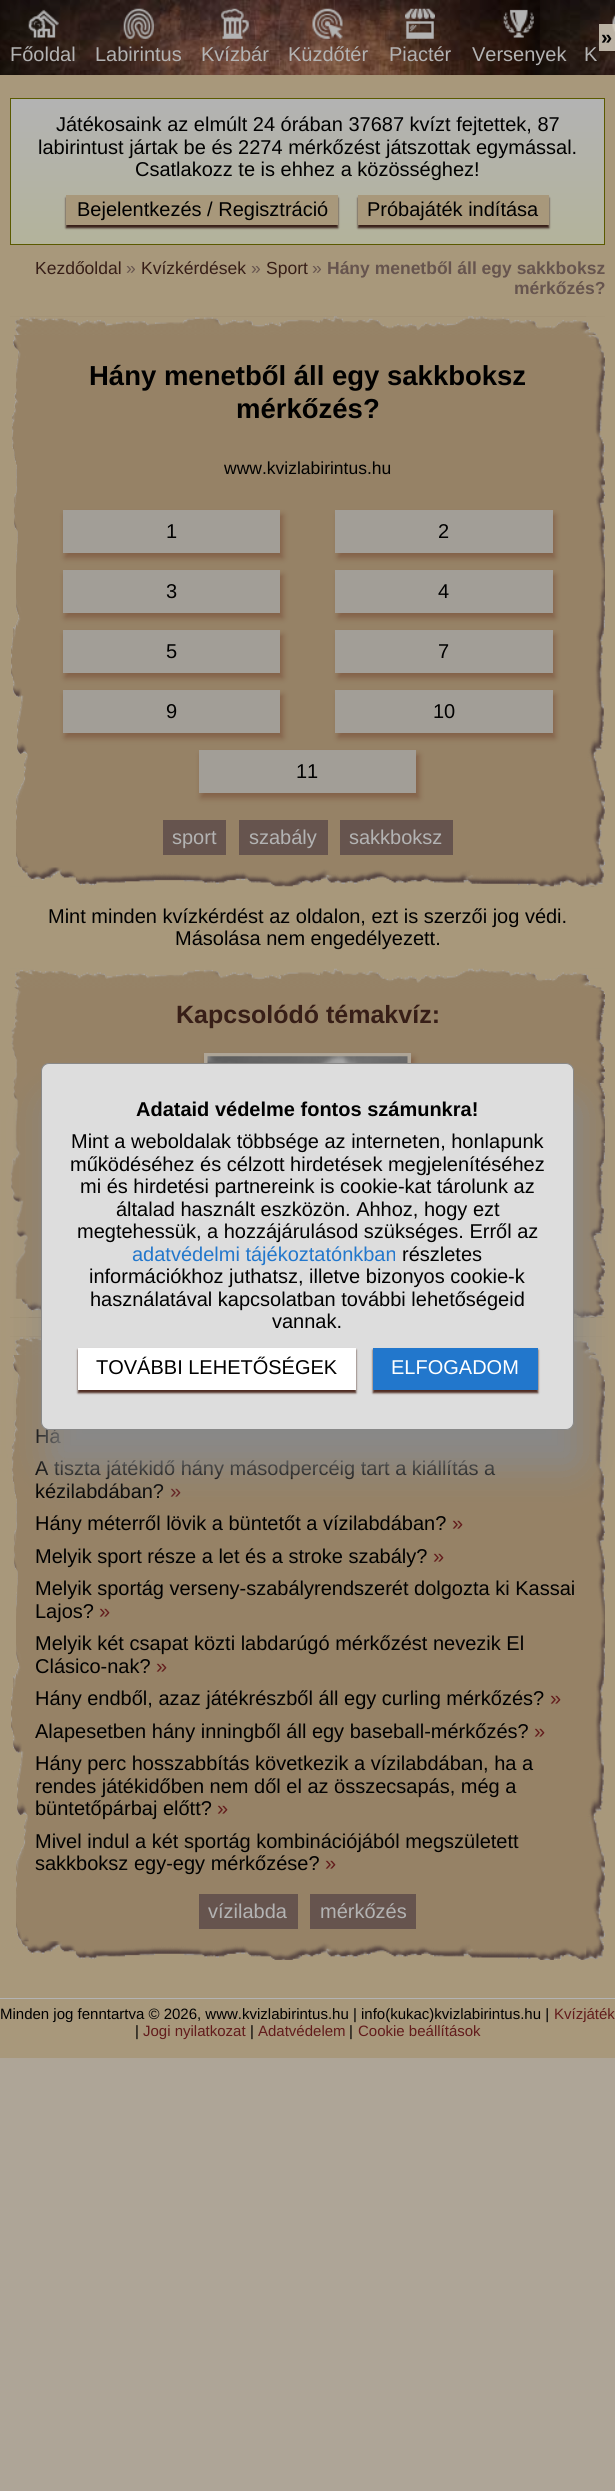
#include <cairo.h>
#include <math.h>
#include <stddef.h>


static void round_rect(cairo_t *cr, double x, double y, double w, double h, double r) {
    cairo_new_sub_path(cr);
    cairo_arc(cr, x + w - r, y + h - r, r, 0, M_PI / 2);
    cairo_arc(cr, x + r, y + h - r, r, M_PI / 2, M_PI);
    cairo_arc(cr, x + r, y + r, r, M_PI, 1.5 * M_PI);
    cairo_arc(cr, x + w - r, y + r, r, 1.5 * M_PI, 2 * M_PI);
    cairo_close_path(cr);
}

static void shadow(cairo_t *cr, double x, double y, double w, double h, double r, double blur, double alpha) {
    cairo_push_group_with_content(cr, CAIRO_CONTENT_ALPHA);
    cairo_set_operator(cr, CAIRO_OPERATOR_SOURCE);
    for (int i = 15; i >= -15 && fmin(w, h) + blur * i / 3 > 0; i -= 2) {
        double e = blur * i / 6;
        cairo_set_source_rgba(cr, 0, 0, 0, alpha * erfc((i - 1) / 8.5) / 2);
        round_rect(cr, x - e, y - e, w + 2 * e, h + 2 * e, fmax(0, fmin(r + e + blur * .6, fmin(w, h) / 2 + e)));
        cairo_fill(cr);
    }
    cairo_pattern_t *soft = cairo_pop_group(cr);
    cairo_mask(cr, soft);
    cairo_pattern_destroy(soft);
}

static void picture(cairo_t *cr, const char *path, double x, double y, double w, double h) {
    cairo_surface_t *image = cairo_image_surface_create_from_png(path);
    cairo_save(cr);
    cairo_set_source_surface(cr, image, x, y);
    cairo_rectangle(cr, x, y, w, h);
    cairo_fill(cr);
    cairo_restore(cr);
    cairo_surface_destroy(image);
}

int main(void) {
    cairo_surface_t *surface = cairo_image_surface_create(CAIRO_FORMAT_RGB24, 615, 2491);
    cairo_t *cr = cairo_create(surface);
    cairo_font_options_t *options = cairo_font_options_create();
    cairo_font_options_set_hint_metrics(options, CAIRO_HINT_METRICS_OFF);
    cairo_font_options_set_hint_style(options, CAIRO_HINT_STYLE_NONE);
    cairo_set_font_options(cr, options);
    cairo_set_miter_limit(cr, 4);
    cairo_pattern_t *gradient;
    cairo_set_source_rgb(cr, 0.682, 0.647, 0.592);
    cairo_paint(cr);
    cairo_set_source_rgb(cr, 0.659, 0.596, 0.482);
    cairo_rectangle(cr, 0, 75, 615, 1983);
    cairo_fill(cr);
    picture(cr, "img1.png", 0, 0, 615, 75);
    picture(cr, "img8.png", 612, 14, 3, 19);
    cairo_set_source_rgba(cr, 0.816, 0.784, 0.725, 0.87);
    cairo_rectangle(cr, 599, 24, 16, 27);
    cairo_fill(cr);
    cairo_select_font_face(cr, "Liberation Sans", CAIRO_FONT_SLANT_NORMAL, CAIRO_FONT_WEIGHT_BOLD);
    cairo_set_font_size(cr, 20);
    cairo_set_source_rgb(cr, 0, 0, 0);
    cairo_move_to(cr, 601, 44);
    cairo_show_text(cr, "»");
    picture(cr, "img2.png", 28, 9, 31, 29);
    cairo_select_font_face(cr, "Liberation Sans", CAIRO_FONT_SLANT_NORMAL, CAIRO_FONT_WEIGHT_NORMAL);
    cairo_set_source_rgb(cr, 0.702, 0.702, 0.702);
    cairo_move_to(cr, 10, 61);
    cairo_show_text(cr, "Főoldal");
    picture(cr, "img3.png", 123, 8, 31, 31);
    cairo_move_to(cr, 95, 61);
    cairo_show_text(cr, "Labirintus");
    picture(cr, "img4.png", 221, 8, 28, 31);
    cairo_move_to(cr, 201, 61);
    cairo_show_text(cr, "Kvízbár");
    picture(cr, "img5.png", 312, 8, 31, 31);
    cairo_move_to(cr, 288, 61);
    cairo_show_text(cr, "Küzdőtér");
    picture(cr, "img6.png", 405, 8, 30, 31);
    cairo_move_to(cr, 389, 61);
    cairo_show_text(cr, "Piactér");
    picture(cr, "img7.png", 503, 9, 31, 29);
    cairo_move_to(cr, 472, 61);
    cairo_show_text(cr, "Versenyek");
    cairo_move_to(cr, 584, 61);
    cairo_show_text(cr, "K");
    gradient = cairo_pattern_create_linear(308, 99, 308, 244);
    cairo_pattern_add_color_stop_rgba(gradient, 0, 0.702, 0.702, 0.702, 1);
    cairo_pattern_add_color_stop_rgba(gradient, 1, 0.702, 0.702, 0.608, 1);
    cairo_set_source(cr, gradient);
    cairo_pattern_destroy(gradient);
    cairo_rectangle(cr, 11, 99, 593, 145);
    cairo_fill(cr);
    cairo_rectangle(cr, 10.5, 98.5, 594, 146);
    cairo_set_source_rgb(cr, 0.353, 0.353, 0);
    cairo_set_line_width(cr, 1);
    cairo_stroke(cr);
    cairo_set_source_rgb(cr, 0, 0, 0);
    cairo_move_to(cr, 56, 131);
    cairo_show_text(cr, "Játékosaink az elmúlt 24 órában 37687 kvízt fejtettek, 87");
    cairo_move_to(cr, 38, 154);
    cairo_show_text(cr, "labirintust jártak be és 2274 mérkőzést játszottak egymással.");
    cairo_move_to(cr, 135, 176);
    cairo_show_text(cr, "Csatlakozz te is ehhez a közösséghez!");
    cairo_set_source_rgb(cr, 0.216, 0.118, 0.09);
    shadow(cr, 66, 198, 272, 30, 0, 1, 1);
    cairo_set_source_rgb(cr, 0.659, 0.596, 0.482);
    cairo_rectangle(cr, 66, 195, 272, 30);
    cairo_fill(cr);
    cairo_set_source_rgb(cr, 0, 0, 0);
    cairo_move_to(cr, 77, 216);
    cairo_show_text(cr, "Bejelentkezés / Regisztráció");
    cairo_set_source_rgb(cr, 0.216, 0.118, 0.09);
    shadow(cr, 358, 198, 191, 30, 0, 1, 1);
    cairo_set_source_rgb(cr, 0.659, 0.596, 0.482);
    cairo_rectangle(cr, 358, 195, 191, 30);
    cairo_fill(cr);
    cairo_set_source_rgb(cr, 0, 0, 0);
    cairo_move_to(cr, 367, 216);
    cairo_show_text(cr, "Próbajáték indítása");
    cairo_set_font_size(cr, 17.5);
    cairo_set_source_rgb(cr, 0.216, 0.118, 0.09);
    cairo_move_to(cr, 35, 274);
    cairo_show_text(cr, "Kezdőoldal");
    cairo_set_source_rgb(cr, 0.4, 0.329, 0.306);
    cairo_move_to(cr, 126, 274);
    cairo_show_text(cr, "»");
    cairo_set_source_rgb(cr, 0.216, 0.118, 0.09);
    cairo_move_to(cr, 141, 274);
    cairo_show_text(cr, "Kvízkérdések");
    cairo_set_source_rgb(cr, 0.4, 0.329, 0.306);
    cairo_move_to(cr, 251, 274);
    cairo_show_text(cr, "»");
    cairo_set_source_rgb(cr, 0.216, 0.118, 0.09);
    cairo_move_to(cr, 266, 274);
    cairo_show_text(cr, "Sport");
    cairo_set_source_rgb(cr, 0.4, 0.329, 0.306);
    cairo_move_to(cr, 312, 274);
    cairo_show_text(cr, "»");
    cairo_select_font_face(cr, "Liberation Sans", CAIRO_FONT_SLANT_NORMAL, CAIRO_FONT_WEIGHT_BOLD);
    cairo_move_to(cr, 327, 274);
    cairo_show_text(cr, "Hány menetből áll egy sakkboksz");
    cairo_move_to(cr, 514, 294);
    cairo_show_text(cr, "mérkőzés?");
    cairo_set_source_rgb(cr, 0.588, 0.51, 0.4);
    cairo_rectangle(cr, 10, 316, 595, 552);
    cairo_fill(cr);
    picture(cr, "img9.png", 10, 316, 595, 571);
    cairo_set_font_size(cr, 27.5);
    cairo_set_source_rgb(cr, 0, 0, 0);
    cairo_move_to(cr, 89, 385);
    cairo_show_text(cr, "Hány menetből áll egy sakkboksz");
    cairo_move_to(cr, 236, 418);
    cairo_show_text(cr, "mérkőzés?");
    cairo_select_font_face(cr, "Liberation Sans", CAIRO_FONT_SLANT_NORMAL, CAIRO_FONT_WEIGHT_NORMAL);
    cairo_set_font_size(cr, 17.5);
    cairo_move_to(cr, 224, 474);
    cairo_show_text(cr, "www.kvizlabirintus.hu");
    cairo_set_source_rgb(cr, 0.357, 0.114, 0.043);
    shadow(cr, 65, 515, 218, 43, 0, 3, 0.33);
    cairo_set_source_rgb(cr, 0.635, 0.62, 0.592);
    cairo_rectangle(cr, 63, 510, 217, 43);
    cairo_fill(cr);
    cairo_set_font_size(cr, 20);
    cairo_set_source_rgb(cr, 0, 0, 0);
    cairo_move_to(cr, 166, 538);
    cairo_show_text(cr, "1");
    cairo_set_source_rgb(cr, 0.357, 0.114, 0.043);
    shadow(cr, 338, 515, 217, 43, 0, 3, 0.33);
    cairo_set_source_rgb(cr, 0.635, 0.62, 0.592);
    cairo_rectangle(cr, 335, 510, 218, 43);
    cairo_fill(cr);
    cairo_set_source_rgb(cr, 0, 0, 0);
    cairo_move_to(cr, 438, 538);
    cairo_show_text(cr, "2");
    cairo_set_source_rgb(cr, 0.357, 0.114, 0.043);
    shadow(cr, 65, 575, 218, 43, 0, 3, 0.33);
    cairo_set_source_rgb(cr, 0.635, 0.62, 0.592);
    cairo_rectangle(cr, 63, 570, 217, 43);
    cairo_fill(cr);
    cairo_set_source_rgb(cr, 0, 0, 0);
    cairo_move_to(cr, 166, 598);
    cairo_show_text(cr, "3");
    cairo_set_source_rgb(cr, 0.357, 0.114, 0.043);
    shadow(cr, 338, 575, 217, 43, 0, 3, 0.33);
    cairo_set_source_rgb(cr, 0.635, 0.62, 0.592);
    cairo_rectangle(cr, 335, 570, 218, 43);
    cairo_fill(cr);
    cairo_set_source_rgb(cr, 0, 0, 0);
    cairo_move_to(cr, 438, 598);
    cairo_show_text(cr, "4");
    cairo_set_source_rgb(cr, 0.357, 0.114, 0.043);
    shadow(cr, 65, 635, 218, 43, 0, 3, 0.33);
    cairo_set_source_rgb(cr, 0.635, 0.62, 0.592);
    cairo_rectangle(cr, 63, 630, 217, 43);
    cairo_fill(cr);
    cairo_set_source_rgb(cr, 0, 0, 0);
    cairo_move_to(cr, 166, 658);
    cairo_show_text(cr, "5");
    cairo_set_source_rgb(cr, 0.357, 0.114, 0.043);
    shadow(cr, 338, 635, 217, 43, 0, 3, 0.33);
    cairo_set_source_rgb(cr, 0.635, 0.62, 0.592);
    cairo_rectangle(cr, 335, 630, 218, 43);
    cairo_fill(cr);
    cairo_set_source_rgb(cr, 0, 0, 0);
    cairo_move_to(cr, 438, 658);
    cairo_show_text(cr, "7");
    cairo_set_source_rgb(cr, 0.357, 0.114, 0.043);
    shadow(cr, 65, 695, 218, 43, 0, 3, 0.33);
    cairo_set_source_rgb(cr, 0.635, 0.62, 0.592);
    cairo_rectangle(cr, 63, 690, 217, 43);
    cairo_fill(cr);
    cairo_set_source_rgb(cr, 0, 0, 0);
    cairo_move_to(cr, 166, 718);
    cairo_show_text(cr, "9");
    cairo_set_source_rgb(cr, 0.357, 0.114, 0.043);
    shadow(cr, 338, 695, 217, 43, 0, 3, 0.33);
    cairo_set_source_rgb(cr, 0.635, 0.62, 0.592);
    cairo_rectangle(cr, 335, 690, 218, 43);
    cairo_fill(cr);
    cairo_set_source_rgb(cr, 0, 0, 0);
    cairo_move_to(cr, 433, 718);
    cairo_show_text(cr, "10");
    cairo_set_source_rgb(cr, 0.357, 0.114, 0.043);
    shadow(cr, 201, 755, 218, 43, 0, 3, 0.33);
    cairo_set_source_rgb(cr, 0.635, 0.62, 0.592);
    cairo_rectangle(cr, 199, 750, 217, 43);
    cairo_fill(cr);
    cairo_set_source_rgb(cr, 0, 0, 0);
    cairo_move_to(cr, 296, 778);
    cairo_show_text(cr, "11");
    cairo_set_source_rgb(cr, 0.4, 0.329, 0.306);
    cairo_rectangle(cr, 163, 820, 63, 35);
    cairo_fill(cr);
    cairo_set_source_rgb(cr, 0.702, 0.702, 0.702);
    cairo_move_to(cr, 172, 844);
    cairo_show_text(cr, "sport");
    cairo_set_source_rgb(cr, 0.4, 0.329, 0.306);
    cairo_rectangle(cr, 239, 820, 89, 35);
    cairo_fill(cr);
    cairo_set_source_rgb(cr, 0.702, 0.702, 0.702);
    cairo_move_to(cr, 249, 844);
    cairo_show_text(cr, "szabály");
    cairo_set_source_rgb(cr, 0.4, 0.329, 0.306);
    cairo_rectangle(cr, 340, 820, 113, 35);
    cairo_fill(cr);
    cairo_set_source_rgb(cr, 0.702, 0.702, 0.702);
    cairo_move_to(cr, 349, 844);
    cairo_show_text(cr, "sakkboksz");
    cairo_set_source_rgb(cr, 0, 0, 0);
    cairo_move_to(cr, 48, 923);
    cairo_show_text(cr, "Mint minden kvízkérdést az oldalon, ezt is szerzői jog védi.");
    cairo_move_to(cr, 175, 945);
    cairo_show_text(cr, "Másolása nem engedélyezett.");
    cairo_set_source_rgb(cr, 0.588, 0.51, 0.4);
    cairo_rectangle(cr, 10, 987, 595, 331);
    cairo_fill(cr);
    picture(cr, "img10.png", 10, 968, 595, 350);
    cairo_select_font_face(cr, "Liberation Sans", CAIRO_FONT_SLANT_NORMAL, CAIRO_FONT_WEIGHT_BOLD);
    cairo_set_font_size(cr, 25);
    cairo_set_source_rgb(cr, 0.216, 0.118, 0.09);
    cairo_move_to(cr, 176, 1023);
    cairo_show_text(cr, "Kapcsolódó témakvíz:");
    cairo_set_source_rgb(cr, 0.357, 0.114, 0.043);
    shadow(cr, 206, 1058, 208, 235, 0, 3, 0.33);
    cairo_set_source_rgb(cr, 0.682, 0.647, 0.592);
    cairo_rectangle(cr, 204, 1053, 207, 10);
    cairo_fill(cr);
    picture(cr, "img11.png", 207, 1056, 201, 7);
    cairo_set_source_rgb(cr, 0.588, 0.51, 0.4);
    cairo_rectangle(cr, 10, 1336, 595, 606);
    cairo_fill(cr);
    picture(cr, "img12.png", 10, 1336, 595, 624);
    cairo_select_font_face(cr, "Liberation Sans", CAIRO_FONT_SLANT_NORMAL, CAIRO_FONT_WEIGHT_NORMAL);
    cairo_set_font_size(cr, 20);
    cairo_set_source_rgb(cr, 0, 0, 0);
    cairo_move_to(cr, 35, 1443);
    cairo_show_text(cr, "Há");
    cairo_move_to(cr, 35, 1475);
    cairo_show_text(cr, "A tiszta játékidő hány másodpercéig tart a kiállítás a");
    cairo_move_to(cr, 35, 1498);
    cairo_show_text(cr, "kézilabdában?");
    cairo_set_source_rgb(cr, 0.384, 0.106, 0.106);
    cairo_move_to(cr, 170, 1498);
    cairo_show_text(cr, "»");
    cairo_set_source_rgb(cr, 0, 0, 0);
    cairo_move_to(cr, 35, 1530);
    cairo_show_text(cr, "Hány méterről lövik a büntetőt a vízilabdában?");
    cairo_set_source_rgb(cr, 0.384, 0.106, 0.106);
    cairo_move_to(cr, 452, 1530);
    cairo_show_text(cr, "»");
    cairo_set_source_rgb(cr, 0, 0, 0);
    cairo_move_to(cr, 35, 1563);
    cairo_show_text(cr, "Melyik sport része a let és a stroke szabály?");
    cairo_set_source_rgb(cr, 0.384, 0.106, 0.106);
    cairo_move_to(cr, 433, 1563);
    cairo_show_text(cr, "»");
    cairo_set_source_rgb(cr, 0, 0, 0);
    cairo_move_to(cr, 35, 1595);
    cairo_show_text(cr, "Melyik sportág verseny-szabályrendszerét dolgozta ki Kassai");
    cairo_move_to(cr, 35, 1618);
    cairo_show_text(cr, "Lajos?");
    cairo_set_source_rgb(cr, 0.384, 0.106, 0.106);
    cairo_move_to(cr, 99, 1618);
    cairo_show_text(cr, "»");
    cairo_set_source_rgb(cr, 0, 0, 0);
    cairo_move_to(cr, 35, 1650);
    cairo_show_text(cr, "Melyik két csapat közti labdarúgó mérkőzést nevezik El");
    cairo_move_to(cr, 35, 1673);
    cairo_show_text(cr, "Clásico-nak?");
    cairo_set_source_rgb(cr, 0.384, 0.106, 0.106);
    cairo_move_to(cr, 156, 1673);
    cairo_show_text(cr, "»");
    cairo_set_source_rgb(cr, 0, 0, 0);
    cairo_move_to(cr, 35, 1705);
    cairo_show_text(cr, "Hány endből, azaz játékrészből áll egy curling mérkőzés?");
    cairo_set_source_rgb(cr, 0.384, 0.106, 0.106);
    cairo_move_to(cr, 550, 1705);
    cairo_show_text(cr, "»");
    cairo_set_source_rgb(cr, 0, 0, 0);
    cairo_move_to(cr, 35, 1738);
    cairo_show_text(cr, "Alapesetben hány inningből áll egy baseball-mérkőzés?");
    cairo_set_source_rgb(cr, 0.384, 0.106, 0.106);
    cairo_move_to(cr, 534, 1738);
    cairo_show_text(cr, "»");
    cairo_set_source_rgb(cr, 0, 0, 0);
    cairo_move_to(cr, 35, 1770);
    cairo_show_text(cr, "Hány perc hosszabbítás következik a vízilabdában, ha a");
    cairo_move_to(cr, 35, 1793);
    cairo_show_text(cr, "rendes játékidőben nem dől el az összecsapás, még a");
    cairo_move_to(cr, 35, 1815);
    cairo_show_text(cr, "büntetőpárbaj előtt?");
    cairo_set_source_rgb(cr, 0.384, 0.106, 0.106);
    cairo_move_to(cr, 217, 1815);
    cairo_show_text(cr, "»");
    cairo_set_source_rgb(cr, 0, 0, 0);
    cairo_move_to(cr, 35, 1848);
    cairo_show_text(cr, "Mivel indul a két sportág kombinációjából megszületett");
    cairo_move_to(cr, 35, 1870);
    cairo_show_text(cr, "sakkboksz egy-egy mérkőzése?");
    cairo_set_source_rgb(cr, 0.384, 0.106, 0.106);
    cairo_move_to(cr, 325, 1870);
    cairo_show_text(cr, "»");
    cairo_set_source_rgb(cr, 0.4, 0.329, 0.306);
    cairo_rectangle(cr, 199, 1894, 99, 35);
    cairo_fill(cr);
    cairo_set_source_rgb(cr, 0.702, 0.702, 0.702);
    cairo_move_to(cr, 208, 1918);
    cairo_show_text(cr, "vízilabda");
    cairo_set_source_rgb(cr, 0.4, 0.329, 0.306);
    cairo_rectangle(cr, 310, 1894, 106, 35);
    cairo_fill(cr);
    cairo_set_source_rgb(cr, 0.702, 0.702, 0.702);
    cairo_move_to(cr, 320, 1918);
    cairo_show_text(cr, "mérkőzés");
    cairo_rectangle(cr, 0, 1998, 615, 1);
    cairo_fill(cr);
    cairo_set_font_size(cr, 15);
    cairo_set_source_rgb(cr, 0, 0, 0);
    cairo_move_to(cr, 0, 2019);
    cairo_show_text(cr, "Minden jog fenntartva © 2026, www.kvizlabirintus.hu | info(kukac)kvizlabirintus.hu |");
    cairo_set_source_rgb(cr, 0.384, 0.106, 0.106);
    cairo_move_to(cr, 554, 2019);
    cairo_show_text(cr, "Kvízjáték");
    cairo_set_source_rgb(cr, 0, 0, 0);
    cairo_move_to(cr, 135, 2036);
    cairo_show_text(cr, "|");
    cairo_set_source_rgb(cr, 0.384, 0.106, 0.106);
    cairo_move_to(cr, 143, 2036);
    cairo_show_text(cr, "Jogi nyilatkozat");
    cairo_set_source_rgb(cr, 0, 0, 0);
    cairo_move_to(cr, 250, 2036);
    cairo_show_text(cr, "|");
    cairo_set_source_rgb(cr, 0.384, 0.106, 0.106);
    cairo_move_to(cr, 258, 2036);
    cairo_show_text(cr, "Adatvédelem");
    cairo_set_source_rgb(cr, 0, 0, 0);
    cairo_move_to(cr, 349, 2036);
    cairo_show_text(cr, "|");
    cairo_set_source_rgb(cr, 0.384, 0.106, 0.106);
    cairo_move_to(cr, 358, 2036);
    cairo_show_text(cr, "Cookie beállítások");
    cairo_set_source_rgb(cr, 0.533, 0.533, 0.533);
    shadow(cr, 48, 1100, 532, 368, 8, 19, 1);
    cairo_set_source_rgb(cr, 0.867, 0.867, 0.867);
    round_rect(cr, 41.5, 1063.5, 532, 366, 7.5);
    cairo_fill_preserve(cr);
    cairo_set_source_rgb(cr, 0.533, 0.533, 0.533);
    cairo_stroke(cr);
    cairo_select_font_face(cr, "Liberation Sans", CAIRO_FONT_SLANT_NORMAL, CAIRO_FONT_WEIGHT_BOLD);
    cairo_set_font_size(cr, 20);
    cairo_set_source_rgb(cr, 0, 0, 0);
    cairo_move_to(cr, 136, 1116);
    cairo_show_text(cr, "Adataid védelme fontos számunkra!");
    cairo_select_font_face(cr, "Liberation Sans", CAIRO_FONT_SLANT_NORMAL, CAIRO_FONT_WEIGHT_NORMAL);
    cairo_move_to(cr, 71, 1148);
    cairo_show_text(cr, "Mint a weboldalak többsége az interneten, honlapunk");
    cairo_move_to(cr, 70, 1171);
    cairo_show_text(cr, "működéséhez és célzott hirdetések megjelenítéséhez");
    cairo_move_to(cr, 80, 1193);
    cairo_show_text(cr, "mi és hirdetési partnereink is cookie-kat tárolunk az");
    cairo_move_to(cr, 116, 1216);
    cairo_show_text(cr, "általad használt eszközön. Ahhoz, hogy ezt");
    cairo_move_to(cr, 77, 1238);
    cairo_show_text(cr, "megtehessük, a hozzájárulásod szükséges. Erről az");
    cairo_set_source_rgb(cr, 0.133, 0.467, 0.8);
    cairo_move_to(cr, 132, 1261);
    cairo_show_text(cr, "adatvédelmi tájékoztatónkban");
    cairo_set_source_rgb(cr, 0, 0, 0);
    cairo_move_to(cr, 402, 1261);
    cairo_show_text(cr, "részletes");
    cairo_move_to(cr, 89, 1283);
    cairo_show_text(cr, "információkhoz juthatsz, illetve bizonyos cookie-k");
    cairo_move_to(cr, 90, 1306);
    cairo_show_text(cr, "használatával kapcsolatban további lehetőségeid");
    cairo_move_to(cr, 272, 1328);
    cairo_show_text(cr, "vannak.");
    cairo_set_source_rgb(cr, 0.306, 0.169, 0.129);
    shadow(cr, 78, 1350, 278, 43, 0, 1, 1);
    cairo_set_source_rgb(cr, 1, 1, 1);
    cairo_rectangle(cr, 78, 1348, 278, 42);
    cairo_fill(cr);
    cairo_set_source_rgb(cr, 0, 0, 0);
    cairo_move_to(cr, 96, 1374);
    cairo_show_text(cr, "TOVÁBBI LEHETŐSÉGEK");
    cairo_set_source_rgb(cr, 0.306, 0.169, 0.129);
    shadow(cr, 373, 1350, 165, 43, 0, 1, 1);
    cairo_set_source_rgb(cr, 0.133, 0.467, 0.8);
    cairo_rectangle(cr, 373, 1348, 165, 42);
    cairo_fill(cr);
    cairo_set_source_rgb(cr, 1, 1, 1);
    cairo_move_to(cr, 391, 1374);
    cairo_show_text(cr, "ELFOGADOM");
    cairo_surface_write_to_png(surface, "page.png");
    cairo_font_options_destroy(options);
    cairo_destroy(cr);
    cairo_surface_destroy(surface);
    return 0;
}
